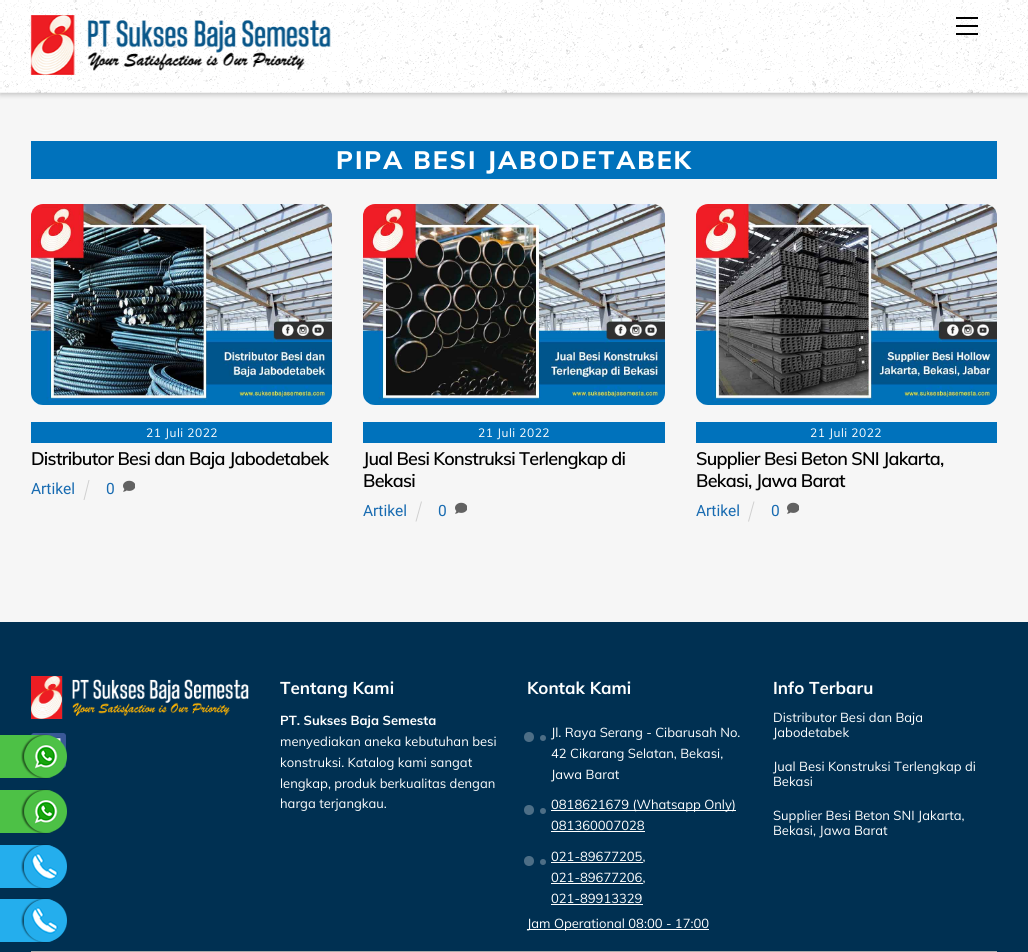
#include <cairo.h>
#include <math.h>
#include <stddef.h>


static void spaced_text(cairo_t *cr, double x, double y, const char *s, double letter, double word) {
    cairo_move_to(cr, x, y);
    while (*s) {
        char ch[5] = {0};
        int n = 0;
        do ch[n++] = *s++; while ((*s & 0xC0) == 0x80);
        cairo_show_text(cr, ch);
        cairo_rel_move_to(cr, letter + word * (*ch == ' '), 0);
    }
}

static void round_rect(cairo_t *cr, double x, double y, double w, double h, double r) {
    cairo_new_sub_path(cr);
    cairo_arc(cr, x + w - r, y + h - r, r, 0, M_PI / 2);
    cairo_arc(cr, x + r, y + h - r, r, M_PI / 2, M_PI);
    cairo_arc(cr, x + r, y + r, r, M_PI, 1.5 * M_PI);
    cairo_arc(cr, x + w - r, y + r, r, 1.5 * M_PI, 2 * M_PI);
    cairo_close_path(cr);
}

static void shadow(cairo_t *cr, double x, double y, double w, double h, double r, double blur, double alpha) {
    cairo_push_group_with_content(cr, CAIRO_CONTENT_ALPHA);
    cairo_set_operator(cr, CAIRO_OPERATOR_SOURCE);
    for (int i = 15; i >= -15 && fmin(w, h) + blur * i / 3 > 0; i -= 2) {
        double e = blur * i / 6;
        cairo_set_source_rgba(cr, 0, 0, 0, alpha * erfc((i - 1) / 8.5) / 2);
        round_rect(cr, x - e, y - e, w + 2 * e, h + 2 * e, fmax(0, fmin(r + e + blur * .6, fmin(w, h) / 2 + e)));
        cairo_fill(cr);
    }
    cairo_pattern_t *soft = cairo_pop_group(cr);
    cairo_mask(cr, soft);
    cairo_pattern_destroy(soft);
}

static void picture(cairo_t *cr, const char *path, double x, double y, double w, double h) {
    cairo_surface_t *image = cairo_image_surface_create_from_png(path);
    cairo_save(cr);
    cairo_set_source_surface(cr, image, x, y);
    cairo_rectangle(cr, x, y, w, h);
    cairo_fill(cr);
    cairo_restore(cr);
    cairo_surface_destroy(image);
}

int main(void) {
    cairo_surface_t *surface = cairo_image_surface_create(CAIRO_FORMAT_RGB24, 1028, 952);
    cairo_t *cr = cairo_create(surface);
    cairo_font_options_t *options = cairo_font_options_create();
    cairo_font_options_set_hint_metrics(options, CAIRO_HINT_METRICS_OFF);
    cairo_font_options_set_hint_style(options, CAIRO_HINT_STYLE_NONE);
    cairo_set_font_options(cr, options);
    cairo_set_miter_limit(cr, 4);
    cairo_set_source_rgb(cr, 0.961, 0.961, 0.961);
    cairo_paint(cr);
    cairo_set_source_rgb(cr, 0, 0, 0);
    shadow(cr, 0, 2, 1028, 93, 0, 2.5, 0.2);
    cairo_set_source_rgb(cr, 1, 1, 1);
    cairo_rectangle(cr, 0, 0, 1028, 93);
    cairo_fill(cr);
    picture(cr, "img1.png", 0, 0, 1028, 93);
    cairo_set_source_rgba(cr, 0, 0, 0, 0.05);
    cairo_rectangle(cr, 0, 92, 1028, 1);
    cairo_fill(cr);
    picture(cr, "img2.png", 30, 15, 301, 60);
    cairo_set_source_rgb(cr, 0, 0, 0);
    cairo_rectangle(cr, 956, 33, 22, 2);
    cairo_fill(cr);
    cairo_rectangle(cr, 956, 17, 22, 2);
    cairo_fill(cr);
    cairo_rectangle(cr, 956, 25, 22, 2);
    cairo_fill(cr);
    cairo_set_source_rgb(cr, 0, 0.447, 0.737);
    cairo_rectangle(cr, 31, 141, 966, 38);
    cairo_fill(cr);
    cairo_select_font_face(cr, "Muli ExtraBold", CAIRO_FONT_SLANT_NORMAL, CAIRO_FONT_WEIGHT_NORMAL);
    cairo_set_font_size(cr, 25);
    cairo_set_source_rgb(cr, 1, 1, 1);
    spaced_text(cr, 336, 169, "PIPA BESI JABODETABEK", 2, 0);
    picture(cr, "img3.png", 31, 204, 301, 201);
    cairo_set_source_rgb(cr, 0, 0.447, 0.737);
    cairo_rectangle(cr, 31, 422, 301, 21);
    cairo_fill(cr);
    cairo_select_font_face(cr, "Muli", CAIRO_FONT_SLANT_NORMAL, CAIRO_FONT_WEIGHT_NORMAL);
    cairo_set_font_size(cr, 12);
    cairo_set_source_rgb(cr, 1, 1, 1);
    spaced_text(cr, 146, 437, "21 Juli 2022", 0.5, 0);
    cairo_select_font_face(cr, "Muli SemiBold", CAIRO_FONT_SLANT_NORMAL, CAIRO_FONT_WEIGHT_NORMAL);
    cairo_set_font_size(cr, 18);
    cairo_set_source_rgb(cr, 0, 0, 0);
    spaced_text(cr, 31, 465, "Distributor Besi dan Baja Jabodetabek", -0.7, 0);
    cairo_select_font_face(cr, "Roboto", CAIRO_FONT_SLANT_NORMAL, CAIRO_FONT_WEIGHT_NORMAL);
    cairo_set_font_size(cr, 15.5);
    cairo_set_source_rgb(cr, 0.094, 0.42, 0.694);
    cairo_move_to(cr, 31, 494);
    cairo_show_text(cr, "Artikel");
    cairo_set_source_rgb(cr, 0.812, 0.812, 0.812);
    cairo_new_path(cr);
    cairo_move_to(cr, 88.5, 480);
    cairo_line_to(cr, 89.5, 480);
    cairo_line_to(cr, 84.5, 500);
    cairo_line_to(cr, 83.5, 500);
    cairo_close_path(cr);
    cairo_fill(cr);
    cairo_set_source_rgb(cr, 0.094, 0.42, 0.694);
    cairo_move_to(cr, 106, 494);
    cairo_show_text(cr, "0");
    picture(cr, "img4.png", 123, 480, 12, 12);
    picture(cr, "img5.png", 363, 204, 302, 201);
    cairo_set_source_rgb(cr, 0, 0.447, 0.737);
    cairo_rectangle(cr, 363, 422, 302, 21);
    cairo_fill(cr);
    cairo_select_font_face(cr, "Muli", CAIRO_FONT_SLANT_NORMAL, CAIRO_FONT_WEIGHT_NORMAL);
    cairo_set_font_size(cr, 12);
    cairo_set_source_rgb(cr, 1, 1, 1);
    spaced_text(cr, 478, 437, "21 Juli 2022", 0.5, 0);
    cairo_select_font_face(cr, "Muli SemiBold", CAIRO_FONT_SLANT_NORMAL, CAIRO_FONT_WEIGHT_NORMAL);
    cairo_set_font_size(cr, 18);
    cairo_set_source_rgb(cr, 0, 0, 0);
    spaced_text(cr, 363, 465, "Jual Besi Konstruksi Terlengkap di", -0.7, 0);
    spaced_text(cr, 363, 487, "Bekasi", -0.7, 0);
    cairo_select_font_face(cr, "Roboto", CAIRO_FONT_SLANT_NORMAL, CAIRO_FONT_WEIGHT_NORMAL);
    cairo_set_font_size(cr, 15.5);
    cairo_set_source_rgb(cr, 0.094, 0.42, 0.694);
    cairo_move_to(cr, 363, 516);
    cairo_show_text(cr, "Artikel");
    cairo_set_source_rgb(cr, 0.812, 0.812, 0.812);
    cairo_new_path(cr);
    cairo_move_to(cr, 421, 501.5);
    cairo_line_to(cr, 422, 501.5);
    cairo_line_to(cr, 416.5, 521.5);
    cairo_line_to(cr, 415.5, 521.5);
    cairo_close_path(cr);
    cairo_fill(cr);
    cairo_set_source_rgb(cr, 0.094, 0.42, 0.694);
    cairo_move_to(cr, 438, 516);
    cairo_show_text(cr, "0");
    picture(cr, "img4.png", 455, 502, 12, 12);
    picture(cr, "img6.png", 696, 204, 301, 201);
    cairo_set_source_rgb(cr, 0, 0.447, 0.737);
    cairo_rectangle(cr, 696, 422, 301, 21);
    cairo_fill(cr);
    cairo_select_font_face(cr, "Muli", CAIRO_FONT_SLANT_NORMAL, CAIRO_FONT_WEIGHT_NORMAL);
    cairo_set_font_size(cr, 12);
    cairo_set_source_rgb(cr, 1, 1, 1);
    spaced_text(cr, 810, 437, "21 Juli 2022", 0.5, 0);
    cairo_select_font_face(cr, "Muli SemiBold", CAIRO_FONT_SLANT_NORMAL, CAIRO_FONT_WEIGHT_NORMAL);
    cairo_set_font_size(cr, 18);
    cairo_set_source_rgb(cr, 0, 0, 0);
    spaced_text(cr, 696, 465, "Supplier Besi Beton SNI Jakarta,", -0.7, 0);
    spaced_text(cr, 696, 487, "Bekasi, Jawa Barat", -0.7, 0);
    cairo_select_font_face(cr, "Roboto", CAIRO_FONT_SLANT_NORMAL, CAIRO_FONT_WEIGHT_NORMAL);
    cairo_set_font_size(cr, 15.5);
    cairo_set_source_rgb(cr, 0.094, 0.42, 0.694);
    cairo_move_to(cr, 696, 516);
    cairo_show_text(cr, "Artikel");
    cairo_set_source_rgb(cr, 0.812, 0.812, 0.812);
    cairo_new_path(cr);
    cairo_move_to(cr, 753.5, 501.5);
    cairo_line_to(cr, 754.5, 501.5);
    cairo_line_to(cr, 749, 521.5);
    cairo_line_to(cr, 748, 521.5);
    cairo_close_path(cr);
    cairo_fill(cr);
    cairo_set_source_rgb(cr, 0.094, 0.42, 0.694);
    cairo_move_to(cr, 771, 516);
    cairo_show_text(cr, "0");
    picture(cr, "img4.png", 787, 502, 12, 12);
    cairo_set_source_rgb(cr, 0, 0.188, 0.322);
    cairo_rectangle(cr, 0, 622, 1028, 330);
    cairo_fill(cr);
    picture(cr, "img7.png", 31, 676, 218, 43);
    picture(cr, "img8.png", 31, 733, 35, 35);
    cairo_select_font_face(cr, "Muli", CAIRO_FONT_SLANT_NORMAL, CAIRO_FONT_WEIGHT_BOLD);
    cairo_set_font_size(cr, 17);
    cairo_set_source_rgb(cr, 1, 1, 1);
    cairo_move_to(cr, 280, 694);
    cairo_show_text(cr, "Tentang Kami");
    cairo_set_font_size(cr, 13);
    cairo_move_to(cr, 280, 725);
    cairo_show_text(cr, "PT. Sukses Baja Semesta");
    cairo_select_font_face(cr, "Muli", CAIRO_FONT_SLANT_NORMAL, CAIRO_FONT_WEIGHT_NORMAL);
    cairo_move_to(cr, 280, 746);
    cairo_show_text(cr, "menyediakan aneka kebutuhan besi");
    cairo_move_to(cr, 280, 767);
    cairo_show_text(cr, "konstruksi. Katalog kami sangat");
    cairo_move_to(cr, 280, 788);
    cairo_show_text(cr, "lengkap, produk berkualitas dengan");
    cairo_move_to(cr, 280, 808);
    cairo_show_text(cr, "harga terjangkau.");
    cairo_select_font_face(cr, "Muli", CAIRO_FONT_SLANT_NORMAL, CAIRO_FONT_WEIGHT_BOLD);
    cairo_set_font_size(cr, 17);
    cairo_move_to(cr, 527, 694);
    cairo_show_text(cr, "Kontak Kami");
    cairo_set_source_rgb(cr, 0.302, 0.431, 0.525);
    cairo_new_path(cr);
    cairo_arc(cr, 529, 737, 5, 0, 2 * M_PI);
    cairo_fill(cr);
    cairo_arc(cr, 543, 738, 3, 0, 2 * M_PI);
    cairo_fill(cr);
    cairo_select_font_face(cr, "Muli", CAIRO_FONT_SLANT_NORMAL, CAIRO_FONT_WEIGHT_NORMAL);
    cairo_set_font_size(cr, 13);
    cairo_set_source_rgb(cr, 1, 1, 1);
    cairo_move_to(cr, 551, 737);
    cairo_show_text(cr, "Jl. Raya Serang - Cibarusah No.");
    cairo_move_to(cr, 551, 758);
    cairo_show_text(cr, "42 Cikarang Selatan, Bekasi,");
    cairo_move_to(cr, 551, 779);
    cairo_show_text(cr, "Jawa Barat");
    cairo_set_source_rgb(cr, 0.302, 0.431, 0.525);
    cairo_new_path(cr);
    cairo_arc(cr, 529, 810, 5, 0, 2 * M_PI);
    cairo_fill(cr);
    cairo_arc(cr, 543, 811, 3, 0, 2 * M_PI);
    cairo_fill(cr);
    cairo_set_source_rgb(cr, 1, 1, 1);
    cairo_rectangle(cr, 551, 810, 185, 1);
    cairo_fill(cr);
    cairo_move_to(cr, 551, 809);
    cairo_show_text(cr, "0818621679 (Whatsapp Only)");
    cairo_move_to(cr, 551, 830);
    cairo_show_text(cr, "081360007028");
    cairo_rectangle(cr, 551, 831, 94, 1);
    cairo_fill(cr);
    cairo_set_source_rgb(cr, 0.302, 0.431, 0.525);
    cairo_arc(cr, 529, 861, 5, 0, 2 * M_PI);
    cairo_fill(cr);
    cairo_arc(cr, 543, 862, 3, 0, 2 * M_PI);
    cairo_fill(cr);
    cairo_set_source_rgb(cr, 1, 1, 1);
    cairo_rectangle(cr, 551, 862, 92, 1);
    cairo_fill(cr);
    cairo_move_to(cr, 551, 861);
    cairo_show_text(cr, "021-89677205,");
    cairo_rectangle(cr, 551, 883, 92, 1);
    cairo_fill(cr);
    cairo_move_to(cr, 551, 882);
    cairo_show_text(cr, "021-89677206,");
    cairo_move_to(cr, 551, 903);
    cairo_show_text(cr, "021-89913329");
    cairo_rectangle(cr, 551, 904, 92, 1);
    cairo_fill(cr);
    cairo_rectangle(cr, 527, 929, 182, 1);
    cairo_fill(cr);
    cairo_move_to(cr, 527, 928);
    cairo_show_text(cr, "Jam Operational 08:00 - 17:00");
    cairo_select_font_face(cr, "Muli", CAIRO_FONT_SLANT_NORMAL, CAIRO_FONT_WEIGHT_BOLD);
    cairo_set_font_size(cr, 17);
    cairo_move_to(cr, 773, 694);
    cairo_show_text(cr, "Info Terbaru");
    cairo_select_font_face(cr, "Muli", CAIRO_FONT_SLANT_NORMAL, CAIRO_FONT_WEIGHT_NORMAL);
    cairo_set_font_size(cr, 13);
    cairo_move_to(cr, 773, 722);
    cairo_show_text(cr, "Distributor Besi dan Baja");
    cairo_move_to(cr, 773, 737);
    cairo_show_text(cr, "Jabodetabek");
    cairo_move_to(cr, 773, 771);
    cairo_show_text(cr, "Jual Besi Konstruksi Terlengkap di");
    cairo_move_to(cr, 773, 786);
    cairo_show_text(cr, "Bekasi");
    cairo_move_to(cr, 773, 820);
    cairo_show_text(cr, "Supplier Besi Beton SNI Jakarta,");
    cairo_move_to(cr, 773, 835);
    cairo_show_text(cr, "Bekasi, Jawa Barat");
    cairo_set_source_rgb(cr, 0.667, 0.667, 0.667);
    cairo_rectangle(cr, 31, 951, 966, 1);
    cairo_fill(cr);
    picture(cr, "img9.png", 0, 734, 67, 45);
    picture(cr, "img10.png", 0, 789, 67, 45);
    picture(cr, "img11.png", 0, 844, 67, 45);
    picture(cr, "img11.png", 0, 898, 67, 45);
    cairo_surface_write_to_png(surface, "page.png");
    cairo_font_options_destroy(options);
    cairo_destroy(cr);
    cairo_surface_destroy(surface);
    return 0;
}
